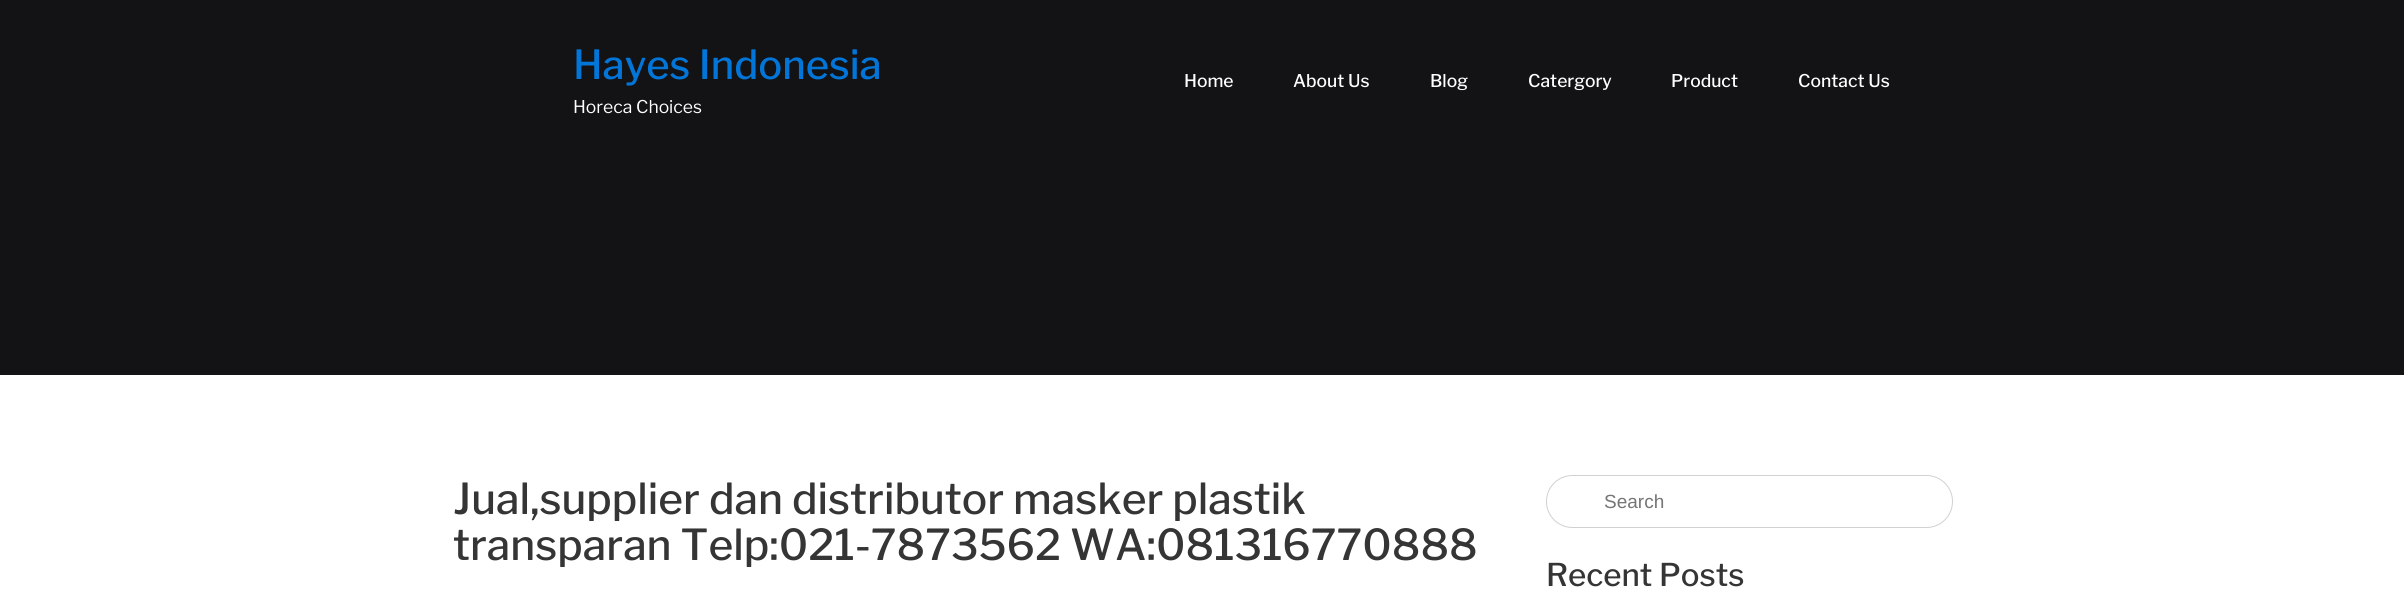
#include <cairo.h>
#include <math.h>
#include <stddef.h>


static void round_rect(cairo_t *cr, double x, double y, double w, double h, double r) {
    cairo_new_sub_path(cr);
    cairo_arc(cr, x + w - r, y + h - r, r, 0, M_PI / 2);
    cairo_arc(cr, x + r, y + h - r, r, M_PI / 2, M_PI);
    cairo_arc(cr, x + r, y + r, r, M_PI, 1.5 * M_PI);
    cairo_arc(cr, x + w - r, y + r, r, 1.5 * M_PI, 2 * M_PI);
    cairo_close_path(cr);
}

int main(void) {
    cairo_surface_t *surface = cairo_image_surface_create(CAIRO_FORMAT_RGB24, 2404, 610);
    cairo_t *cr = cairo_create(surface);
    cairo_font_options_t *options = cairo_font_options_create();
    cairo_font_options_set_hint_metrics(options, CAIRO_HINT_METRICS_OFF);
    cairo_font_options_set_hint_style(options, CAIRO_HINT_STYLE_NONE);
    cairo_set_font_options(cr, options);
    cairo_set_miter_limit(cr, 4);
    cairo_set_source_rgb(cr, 1, 1, 1);
    cairo_paint(cr);
    cairo_set_source_rgb(cr, 0.075, 0.075, 0.086);
    cairo_rectangle(cr, 0, 0, 2404, 375);
    cairo_fill(cr);
    cairo_select_font_face(cr, "Libre Franklin Medium", CAIRO_FONT_SLANT_NORMAL, CAIRO_FONT_WEIGHT_NORMAL);
    cairo_set_font_size(cr, 40);
    cairo_set_source_rgb(cr, 0.008, 0.459, 0.847);
    cairo_move_to(cr, 573, 79);
    cairo_show_text(cr, "Hayes Indonesia");
    cairo_select_font_face(cr, "Libre Franklin", CAIRO_FONT_SLANT_NORMAL, CAIRO_FONT_WEIGHT_NORMAL);
    cairo_set_font_size(cr, 17.5);
    cairo_set_source_rgb(cr, 1, 1, 1);
    cairo_move_to(cr, 573, 113);
    cairo_show_text(cr, "Horeca Choices");
    cairo_select_font_face(cr, "Libre Franklin Medium", CAIRO_FONT_SLANT_NORMAL, CAIRO_FONT_WEIGHT_NORMAL);
    cairo_move_to(cr, 1184, 87);
    cairo_show_text(cr, "Home");
    cairo_move_to(cr, 1293, 87);
    cairo_show_text(cr, "About Us");
    cairo_move_to(cr, 1430, 87);
    cairo_show_text(cr, "Blog");
    cairo_move_to(cr, 1528, 87);
    cairo_show_text(cr, "Catergory");
    cairo_move_to(cr, 1671, 87);
    cairo_show_text(cr, "Product");
    cairo_move_to(cr, 1798, 87);
    cairo_show_text(cr, "Contact Us");
    cairo_set_font_size(cr, 42.5);
    cairo_set_source_rgb(cr, 0.208, 0.208, 0.208);
    cairo_move_to(cr, 453, 514);
    cairo_show_text(cr, "Jual,supplier dan distributor masker plastik");
    cairo_move_to(cr, 453, 560);
    cairo_show_text(cr, "transparan Telp:021-7873562 WA:081316770888");
    round_rect(cr, 1546.5, 475.5, 406, 52, 26);
    cairo_set_source_rgb(cr, 0.82, 0.82, 0.82);
    cairo_set_line_width(cr, 1);
    cairo_stroke(cr);
    cairo_select_font_face(cr, "Liberation Sans", CAIRO_FONT_SLANT_NORMAL, CAIRO_FONT_WEIGHT_NORMAL);
    cairo_set_font_size(cr, 19);
    cairo_set_source_rgb(cr, 0.459, 0.459, 0.459);
    cairo_move_to(cr, 1604, 508);
    cairo_show_text(cr, "Search");
    cairo_select_font_face(cr, "Libre Franklin Medium", CAIRO_FONT_SLANT_NORMAL, CAIRO_FONT_WEIGHT_NORMAL);
    cairo_set_font_size(cr, 31.25);
    cairo_set_source_rgb(cr, 0.208, 0.208, 0.208);
    cairo_move_to(cr, 1546, 586);
    cairo_show_text(cr, "Recent Posts");
    cairo_surface_write_to_png(surface, "page.png");
    cairo_font_options_destroy(options);
    cairo_destroy(cr);
    cairo_surface_destroy(surface);
    return 0;
}
